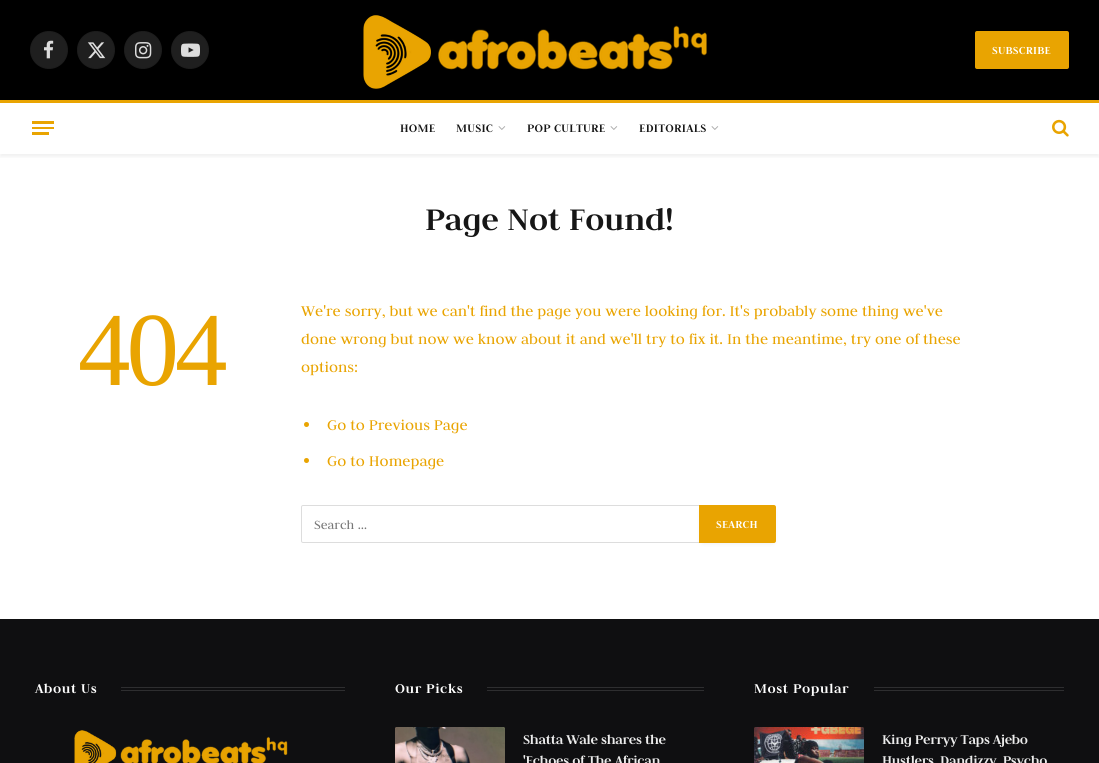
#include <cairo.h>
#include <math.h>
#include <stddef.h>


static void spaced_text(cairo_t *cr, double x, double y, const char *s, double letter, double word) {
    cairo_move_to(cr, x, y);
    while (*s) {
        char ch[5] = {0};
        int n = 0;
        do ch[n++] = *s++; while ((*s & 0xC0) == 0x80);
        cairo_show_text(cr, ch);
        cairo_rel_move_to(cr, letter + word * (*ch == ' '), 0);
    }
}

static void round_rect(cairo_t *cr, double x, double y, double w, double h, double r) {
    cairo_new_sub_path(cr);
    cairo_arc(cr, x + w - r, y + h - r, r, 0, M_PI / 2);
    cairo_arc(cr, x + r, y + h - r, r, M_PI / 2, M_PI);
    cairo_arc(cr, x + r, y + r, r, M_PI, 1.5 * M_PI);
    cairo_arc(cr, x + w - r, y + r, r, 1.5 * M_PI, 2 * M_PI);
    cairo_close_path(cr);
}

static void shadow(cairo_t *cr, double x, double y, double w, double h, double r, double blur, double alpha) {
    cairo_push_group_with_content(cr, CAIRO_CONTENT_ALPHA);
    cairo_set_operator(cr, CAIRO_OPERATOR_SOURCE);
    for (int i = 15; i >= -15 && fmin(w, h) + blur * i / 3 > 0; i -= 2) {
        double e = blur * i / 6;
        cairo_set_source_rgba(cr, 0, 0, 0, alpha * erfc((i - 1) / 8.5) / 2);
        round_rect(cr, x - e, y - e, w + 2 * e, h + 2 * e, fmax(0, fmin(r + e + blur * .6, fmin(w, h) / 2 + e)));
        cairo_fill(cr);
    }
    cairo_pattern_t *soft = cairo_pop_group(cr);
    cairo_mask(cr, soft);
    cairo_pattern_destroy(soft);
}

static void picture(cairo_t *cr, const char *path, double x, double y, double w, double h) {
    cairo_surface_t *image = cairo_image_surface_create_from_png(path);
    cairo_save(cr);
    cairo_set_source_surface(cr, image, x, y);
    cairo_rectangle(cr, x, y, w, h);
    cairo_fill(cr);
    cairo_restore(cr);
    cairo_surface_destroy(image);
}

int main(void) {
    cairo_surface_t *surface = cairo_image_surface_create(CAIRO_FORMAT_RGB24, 1099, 763);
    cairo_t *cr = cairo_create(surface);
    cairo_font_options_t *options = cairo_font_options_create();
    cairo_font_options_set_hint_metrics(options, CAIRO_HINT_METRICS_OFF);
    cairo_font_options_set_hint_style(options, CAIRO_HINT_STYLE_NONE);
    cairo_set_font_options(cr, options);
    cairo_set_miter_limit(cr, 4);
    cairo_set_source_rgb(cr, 1, 1, 1);
    cairo_paint(cr);
    cairo_save(cr);
    cairo_rectangle(cr, 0, 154, 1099, 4);
    cairo_clip(cr);
    cairo_set_source_rgb(cr, 0.039, 0.039, 0.039);
    shadow(cr, 0, 3, 1099, 154, 0, 2, 0.06);
    cairo_restore(cr);
    cairo_set_source_rgb(cr, 0, 0, 0);
    cairo_rectangle(cr, 0, 0, 1099, 100);
    cairo_fill(cr);
    cairo_set_source_rgb(cr, 0.122, 0.122, 0.122);
    cairo_arc(cr, 49, 50, 19, 0, 2 * M_PI);
    cairo_fill(cr);
    cairo_arc(cr, 49, 50, 18.5, 0, 2 * M_PI);
    cairo_set_source_rgba(cr, 0, 0, 0, 0.09);
    cairo_set_line_width(cr, 1);
    cairo_stroke(cr);
    picture(cr, "img1.png", 44, 40, 10, 19);
    cairo_set_source_rgb(cr, 0.122, 0.122, 0.122);
    cairo_arc(cr, 96, 50, 19, 0, 2 * M_PI);
    cairo_fill(cr);
    cairo_arc(cr, 96, 50, 18.5, 0, 2 * M_PI);
    cairo_set_source_rgba(cr, 0, 0, 0, 0.09);
    cairo_stroke(cr);
    picture(cr, "img2.png", 87, 42, 19, 17);
    cairo_set_source_rgb(cr, 0.122, 0.122, 0.122);
    cairo_arc(cr, 143, 50, 19, 0, 2 * M_PI);
    cairo_fill(cr);
    cairo_arc(cr, 143, 50, 18.5, 0, 2 * M_PI);
    cairo_set_source_rgba(cr, 0, 0, 0, 0.09);
    cairo_stroke(cr);
    picture(cr, "img3.png", 135, 42, 17, 17);
    cairo_set_source_rgb(cr, 0.122, 0.122, 0.122);
    cairo_arc(cr, 190, 50, 19, 0, 2 * M_PI);
    cairo_fill(cr);
    cairo_arc(cr, 190, 50, 18.5, 0, 2 * M_PI);
    cairo_set_source_rgba(cr, 0, 0, 0, 0.09);
    cairo_stroke(cr);
    picture(cr, "img4.png", 181, 43, 19, 14);
    picture(cr, "img5.png", 363, 15, 344, 74);
    cairo_set_source_rgb(cr, 0.914, 0.643, 0.004);
    round_rect(cr, 975, 31, 94, 38, 2);
    cairo_fill(cr);
    cairo_select_font_face(cr, "Judson", CAIRO_FONT_SLANT_NORMAL, CAIRO_FONT_WEIGHT_BOLD);
    cairo_set_font_size(cr, 12);
    cairo_set_source_rgb(cr, 1, 1, 1);
    spaced_text(cr, 992, 54, "SUBSCRIBE", 0.25, 0);
    cairo_set_source_rgb(cr, 0.914, 0.643, 0.004);
    cairo_rectangle(cr, 0, 100, 1099, 3);
    cairo_fill(cr);
    cairo_rectangle(cr, 32, 132, 17, 3);
    cairo_fill(cr);
    cairo_rectangle(cr, 32, 121, 22, 3);
    cairo_fill(cr);
    cairo_rectangle(cr, 32, 127, 22, 2);
    cairo_fill(cr);
    cairo_set_font_size(cr, 12.75);
    cairo_set_source_rgb(cr, 0.086, 0.086, 0.086);
    spaced_text(cr, 400, 132, "HOME", 0.25, 0);
    spaced_text(cr, 456, 132, "MUSIC", 0.25, 0);
    picture(cr, "img6.png", 498, 126, 8, 4);
    spaced_text(cr, 527, 132, "POP CULTURE", 0.25, 0);
    picture(cr, "img6.png", 610, 126, 8, 4);
    spaced_text(cr, 639, 132, "EDITORIALS", 0.25, 0);
    picture(cr, "img6.png", 711, 126, 8, 4);
    picture(cr, "img7.png", 1052, 119, 17, 18);
    cairo_set_font_size(cr, 35);
    cairo_move_to(cr, 425, 230);
    cairo_show_text(cr, "Page Not Found!");
    cairo_select_font_face(cr, "Liberation Serif", CAIRO_FONT_SLANT_NORMAL, CAIRO_FONT_WEIGHT_NORMAL);
    cairo_set_font_size(cr, 105);
    cairo_set_source_rgb(cr, 0.914, 0.643, 0.004);
    spaced_text(cr, 78, 385, "404", -4, 0);
    cairo_select_font_face(cr, "Judson", CAIRO_FONT_SLANT_NORMAL, CAIRO_FONT_WEIGHT_NORMAL);
    cairo_set_font_size(cr, 16.6);
    cairo_move_to(cr, 301, 316);
    cairo_show_text(cr, "We're sorry, but we can't find the page you were looking for. It's probably some thing we've");
    cairo_move_to(cr, 301, 344);
    cairo_show_text(cr, "done wrong but now we know about it and we'll try to fix it. In the meantime, try one of these");
    cairo_move_to(cr, 301, 372);
    cairo_show_text(cr, "options:");
    cairo_new_path(cr);
    cairo_arc(cr, 306.5, 424.5, 2.5, 0, 2 * M_PI);
    cairo_fill(cr);
    cairo_move_to(cr, 327, 430);
    cairo_show_text(cr, "Go to Previous Page");
    cairo_new_path(cr);
    cairo_arc(cr, 306.5, 460.5, 2.5, 0, 2 * M_PI);
    cairo_fill(cr);
    cairo_move_to(cr, 327, 466);
    cairo_show_text(cr, "Go to Homepage");
    round_rect(cr, 301.5, 505.5, 399, 37, 1.5);
    cairo_set_source_rgb(cr, 0.867, 0.867, 0.867);
    cairo_stroke(cr);
    cairo_set_font_size(cr, 14);
    cairo_set_source_rgb(cr, 0.467, 0.467, 0.467);
    cairo_move_to(cr, 314, 529);
    cairo_show_text(cr, "Search …");
    cairo_set_source_rgb(cr, 0, 0, 0);
    shadow(cr, 703, 511, 69, 30, 0, 3.5, 0.16);
    cairo_set_source_rgb(cr, 0.914, 0.643, 0.004);
    cairo_new_path(cr);
    cairo_move_to(cr, 699, 505);
    cairo_line_to(cr, 774, 505);
    cairo_curve_to(cr, 775, 505, 776, 506, 776, 507);
    cairo_line_to(cr, 776, 541);
    cairo_curve_to(cr, 776, 542, 775, 543, 774, 543);
    cairo_line_to(cr, 699, 543);
    cairo_close_path(cr);
    cairo_fill(cr);
    cairo_select_font_face(cr, "Judson", CAIRO_FONT_SLANT_NORMAL, CAIRO_FONT_WEIGHT_BOLD);
    cairo_set_font_size(cr, 12);
    cairo_set_source_rgb(cr, 1, 1, 1);
    spaced_text(cr, 716, 528, "SEARCH", 0.25, 0);
    cairo_set_source_rgb(cr, 0.059, 0.059, 0.067);
    cairo_rectangle(cr, 0, 619, 1099, 144);
    cairo_fill(cr);
    cairo_set_font_size(cr, 15);
    cairo_set_source_rgb(cr, 1, 1, 1);
    spaced_text(cr, 35, 693, "About Us", 0.6, 0);
    cairo_set_source_rgb(cr, 0.18, 0.18, 0.188);
    cairo_rectangle(cr, 121, 687, 224, 1);
    cairo_fill(cr);
    cairo_rectangle(cr, 121, 690, 224, 1);
    cairo_fill(cr);
    picture(cr, "img8.png", 74, 730, 214, 33);
    cairo_set_source_rgb(cr, 1, 1, 1);
    spaced_text(cr, 395, 693, "Our Picks", 0.6, 0);
    cairo_set_source_rgb(cr, 0.18, 0.18, 0.188);
    cairo_rectangle(cr, 487, 687, 217, 1);
    cairo_fill(cr);
    cairo_rectangle(cr, 487, 690, 217, 1);
    cairo_fill(cr);
    picture(cr, "img9.png", 395, 727, 110, 36);
    cairo_set_source_rgb(cr, 0.925, 0.925, 0.925);
    spaced_text(cr, 523, 744, "Shatta Wale shares the", -0.3, 0);
    spaced_text(cr, 523, 765, "'Echoes of The African", -0.3, 0);
    cairo_set_source_rgb(cr, 1, 1, 1);
    spaced_text(cr, 754, 693, "Most Popular", 0.6, 0);
    cairo_set_source_rgb(cr, 0.18, 0.18, 0.188);
    cairo_rectangle(cr, 874, 687, 190, 1);
    cairo_fill(cr);
    cairo_rectangle(cr, 874, 690, 190, 1);
    cairo_fill(cr);
    picture(cr, "img10.png", 754, 727, 110, 36);
    cairo_set_source_rgb(cr, 0.925, 0.925, 0.925);
    spaced_text(cr, 882, 744, "King Perryy Taps Ajebo", -0.3, 0);
    spaced_text(cr, 882, 765, "Hustlers, Dandizzy, Psycho", -0.3, 0);
    cairo_surface_write_to_png(surface, "page.png");
    cairo_font_options_destroy(options);
    cairo_destroy(cr);
    cairo_surface_destroy(surface);
    return 0;
}
